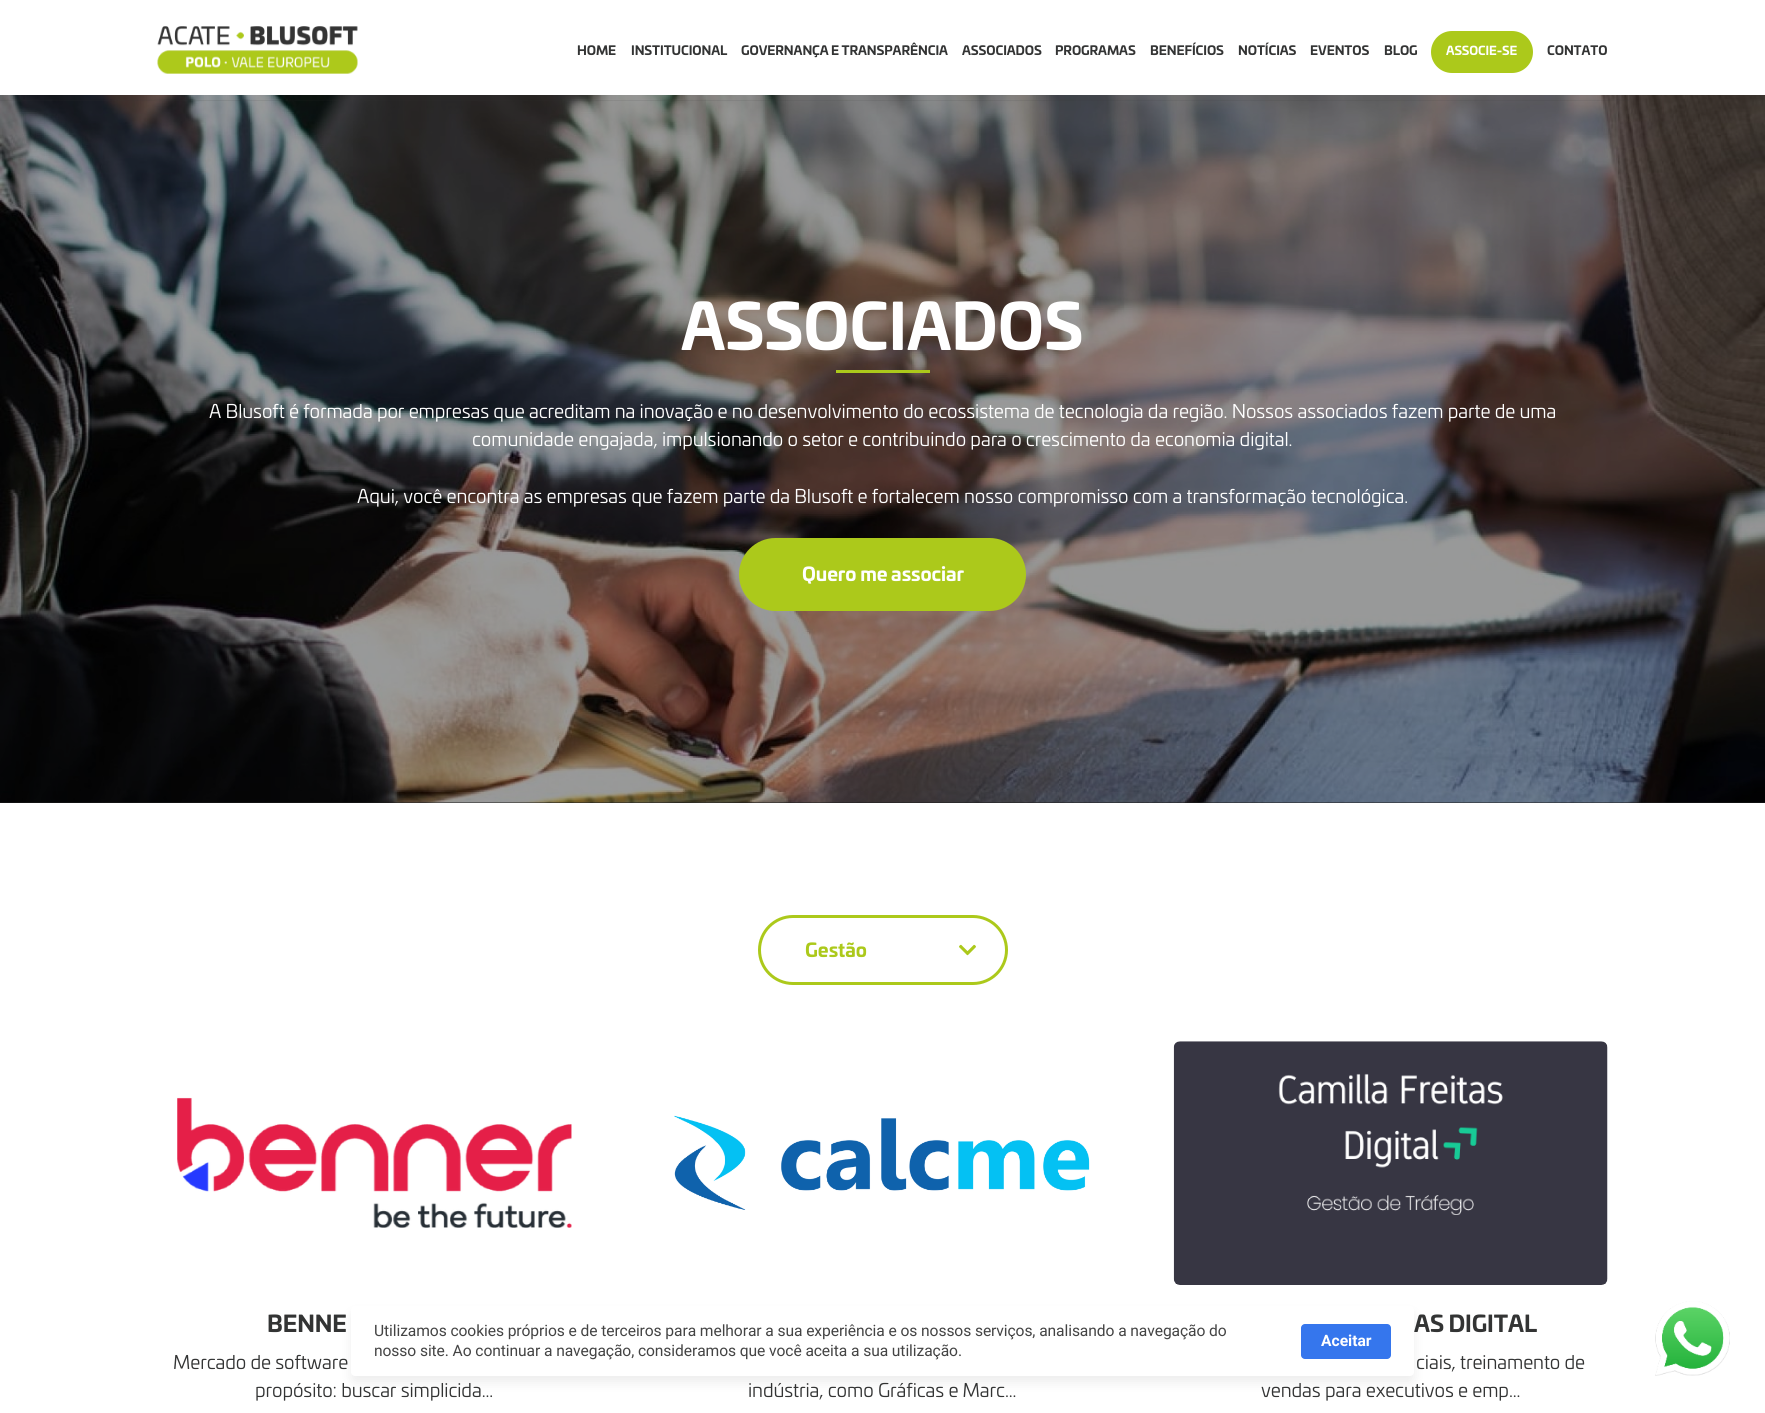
#include <cairo.h>
#include <math.h>
#include <stddef.h>


static void spaced_text(cairo_t *cr, double x, double y, const char *s, double letter, double word) {
    cairo_move_to(cr, x, y);
    while (*s) {
        char ch[5] = {0};
        int n = 0;
        do ch[n++] = *s++; while ((*s & 0xC0) == 0x80);
        cairo_show_text(cr, ch);
        cairo_rel_move_to(cr, letter + word * (*ch == ' '), 0);
    }
}

static void round_rect(cairo_t *cr, double x, double y, double w, double h, double r) {
    cairo_new_sub_path(cr);
    cairo_arc(cr, x + w - r, y + h - r, r, 0, M_PI / 2);
    cairo_arc(cr, x + r, y + h - r, r, M_PI / 2, M_PI);
    cairo_arc(cr, x + r, y + r, r, M_PI, 1.5 * M_PI);
    cairo_arc(cr, x + w - r, y + r, r, 1.5 * M_PI, 2 * M_PI);
    cairo_close_path(cr);
}

static void shadow(cairo_t *cr, double x, double y, double w, double h, double r, double blur, double alpha) {
    cairo_push_group_with_content(cr, CAIRO_CONTENT_ALPHA);
    cairo_set_operator(cr, CAIRO_OPERATOR_SOURCE);
    for (int i = 15; i >= -15 && fmin(w, h) + blur * i / 3 > 0; i -= 2) {
        double e = blur * i / 6;
        cairo_set_source_rgba(cr, 0, 0, 0, alpha * erfc((i - 1) / 8.5) / 2);
        round_rect(cr, x - e, y - e, w + 2 * e, h + 2 * e, fmax(0, fmin(r + e + blur * .6, fmin(w, h) / 2 + e)));
        cairo_fill(cr);
    }
    cairo_pattern_t *soft = cairo_pop_group(cr);
    cairo_mask(cr, soft);
    cairo_pattern_destroy(soft);
}

static void picture(cairo_t *cr, const char *path, double x, double y, double w, double h) {
    cairo_surface_t *image = cairo_image_surface_create_from_png(path);
    cairo_save(cr);
    cairo_set_source_surface(cr, image, x, y);
    cairo_rectangle(cr, x, y, w, h);
    cairo_fill(cr);
    cairo_restore(cr);
    cairo_surface_destroy(image);
}

int main(void) {
    cairo_surface_t *surface = cairo_image_surface_create(CAIRO_FORMAT_RGB24, 1765, 1413);
    cairo_t *cr = cairo_create(surface);
    cairo_font_options_t *options = cairo_font_options_create();
    cairo_font_options_set_hint_metrics(options, CAIRO_HINT_METRICS_OFF);
    cairo_font_options_set_hint_style(options, CAIRO_HINT_STYLE_NONE);
    cairo_set_font_options(cr, options);
    cairo_set_miter_limit(cr, 4);
    cairo_set_source_rgb(cr, 1, 1, 1);
    cairo_paint(cr);
    cairo_set_source_rgb(cr, 0.122, 0.122, 0.122);
    cairo_rectangle(cr, 0, 802, 1765, 1);
    cairo_fill(cr);
    picture(cr, "img2.png", 0, 95, 1765, 708);
    cairo_set_source_rgba(cr, 0.2, 0.204, 0.204, 0.1);
    cairo_rectangle(cr, 0, 100, 1629, 1);
    cairo_fill(cr);
    picture(cr, "img1.png", 157, 26, 201, 48);
    cairo_select_font_face(cr, "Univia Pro", CAIRO_FONT_SLANT_NORMAL, CAIRO_FONT_WEIGHT_BOLD);
    cairo_set_font_size(cr, 12.5);
    cairo_set_source_rgb(cr, 0.2, 0.204, 0.204);
    spaced_text(cr, 577, 55, "HOME", -0.09, 0);
    spaced_text(cr, 631, 55, "INSTITUCIONAL", -0.09, 0);
    spaced_text(cr, 741, 55, "GOVERNANÇA E TRANSPARÊNCIA", -0.09, 0);
    spaced_text(cr, 962, 55, "ASSOCIADOS", -0.09, 0);
    spaced_text(cr, 1055, 55, "PROGRAMAS", -0.09, 0);
    spaced_text(cr, 1150, 55, "BENEFÍCIOS", -0.09, 0);
    spaced_text(cr, 1238, 55, "NOTÍCIAS", -0.09, 0);
    spaced_text(cr, 1310, 55, "EVENTOS", -0.09, 0);
    spaced_text(cr, 1384, 55, "BLOG", -0.09, 0);
    cairo_set_source_rgb(cr, 0.675, 0.788, 0.106);
    round_rect(cr, 1431, 31, 102, 42, 21);
    cairo_fill(cr);
    cairo_set_font_size(cr, 12);
    cairo_set_source_rgb(cr, 1, 1, 1);
    spaced_text(cr, 1446, 55, "ASSOCIE-SE", -0.09, 0);
    cairo_set_font_size(cr, 12.5);
    cairo_set_source_rgb(cr, 0.2, 0.204, 0.204);
    spaced_text(cr, 1547, 55, "CONTATO", -0.09, 0);
    cairo_set_font_size(cr, 62.5);
    cairo_set_source_rgb(cr, 1, 1, 1);
    spaced_text(cr, 681, 350, "ASSOCIADOS", -0.09, 0);
    cairo_set_source_rgb(cr, 0.675, 0.788, 0.106);
    cairo_rectangle(cr, 836, 370, 94, 3);
    cairo_fill(cr);
    cairo_select_font_face(cr, "Univia Pro", CAIRO_FONT_SLANT_NORMAL, CAIRO_FONT_WEIGHT_NORMAL);
    cairo_set_font_size(cr, 18.75);
    cairo_set_source_rgb(cr, 1, 1, 1);
    spaced_text(cr, 209, 418, "A Blusoft é formada por empresas que acreditam na inovação e no desenvolvimento do ecossistema de tecnologia da região. Nossos associados fazem parte de uma", -0.09, 0);
    spaced_text(cr, 472, 446, "comunidade engajada, impulsionando o setor e contribuindo para o crescimento da economia digital.", -0.09, 0);
    spaced_text(cr, 357, 503, "Aqui, você encontra as empresas que fazem parte da Blusoft e fortalecem nosso compromisso com a transformação tecnológica.", -0.09, 0);
    cairo_set_source_rgb(cr, 0.675, 0.788, 0.106);
    round_rect(cr, 739, 538, 287, 73, 36.5);
    cairo_fill(cr);
    cairo_select_font_face(cr, "Univia Pro", CAIRO_FONT_SLANT_NORMAL, CAIRO_FONT_WEIGHT_BOLD);
    cairo_set_source_rgb(cr, 1, 1, 1);
    spaced_text(cr, 802, 581, "Quero me associar", -0.09, 0);
    round_rect(cr, 759.5, 916.5, 247, 67, 33.5);
    cairo_set_source_rgb(cr, 0.675, 0.788, 0.106);
    cairo_set_line_width(cr, 3);
    cairo_stroke(cr);
    cairo_move_to(cr, 805, 957);
    cairo_show_text(cr, "Gestão");
    picture(cr, "img3.png", 959, 944, 17, 12);
    picture(cr, "img4.png", 177, 1097, 395, 131);
    cairo_set_font_size(cr, 22.5);
    cairo_set_source_rgb(cr, 0.2, 0.204, 0.204);
    spaced_text(cr, 267, 1332, "BENNE", -0.09, 0);
    cairo_select_font_face(cr, "Univia Pro", CAIRO_FONT_SLANT_NORMAL, CAIRO_FONT_WEIGHT_NORMAL);
    cairo_set_font_size(cr, 18.75);
    spaced_text(cr, 173, 1369, "Mercado de software", -0.09, 0);
    spaced_text(cr, 255, 1397, "propósito: buscar simplicida...", -0.09, 0);
    picture(cr, "img5.png", 674, 1115, 416, 95);
    spaced_text(cr, 748, 1397, "indústria, como Gráficas e Marc...", -0.09, 0);
    picture(cr, "img6.png", 1173, 1041, 435, 244);
    cairo_select_font_face(cr, "Univia Pro", CAIRO_FONT_SLANT_NORMAL, CAIRO_FONT_WEIGHT_BOLD);
    cairo_set_font_size(cr, 22.5);
    spaced_text(cr, 1414, 1332, "AS DIGITAL", -0.09, 0);
    cairo_select_font_face(cr, "Univia Pro", CAIRO_FONT_SLANT_NORMAL, CAIRO_FONT_WEIGHT_NORMAL);
    cairo_set_font_size(cr, 18.75);
    spaced_text(cr, 1416, 1369, "ciais, treinamento de", -0.09, 0);
    spaced_text(cr, 1261, 1397, "vendas para executivos e emp...", -0.09, 0);
    picture(cr, "img7.png", 1655, 1301, 75, 75);
    cairo_set_source_rgb(cr, 0, 0, 0);
    shadow(cr, 351, 1313, 1063, 70, 4, 6, 0.07);
    cairo_set_source_rgb(cr, 1, 1, 1);
    round_rect(cr, 351, 1306, 1063, 70, 4);
    cairo_fill(cr);
    cairo_select_font_face(cr, "Roboto", CAIRO_FONT_SLANT_NORMAL, CAIRO_FONT_WEIGHT_NORMAL);
    cairo_set_font_size(cr, 15.62);
    cairo_set_source_rgb(cr, 0.267, 0.267, 0.267);
    spaced_text(cr, 374, 1336, "Utilizamos cookies próprios e de terceiros para melhorar a sua experiência e os nossos serviços, analisando a navegação do", -0.09, 0);
    spaced_text(cr, 374, 1356, "nosso site. Ao continuar a navegação, consideramos que você aceita a sua utilização.", -0.09, 0);
    cairo_set_source_rgb(cr, 0.208, 0.463, 0.929);
    round_rect(cr, 1301, 1324, 90, 35, 4);
    cairo_fill(cr);
    cairo_select_font_face(cr, "Roboto", CAIRO_FONT_SLANT_NORMAL, CAIRO_FONT_WEIGHT_BOLD);
    cairo_set_source_rgb(cr, 1, 1, 1);
    cairo_move_to(cr, 1321, 1346);
    cairo_show_text(cr, "Aceitar");
    cairo_surface_write_to_png(surface, "page.png");
    cairo_font_options_destroy(options);
    cairo_destroy(cr);
    cairo_surface_destroy(surface);
    return 0;
}
